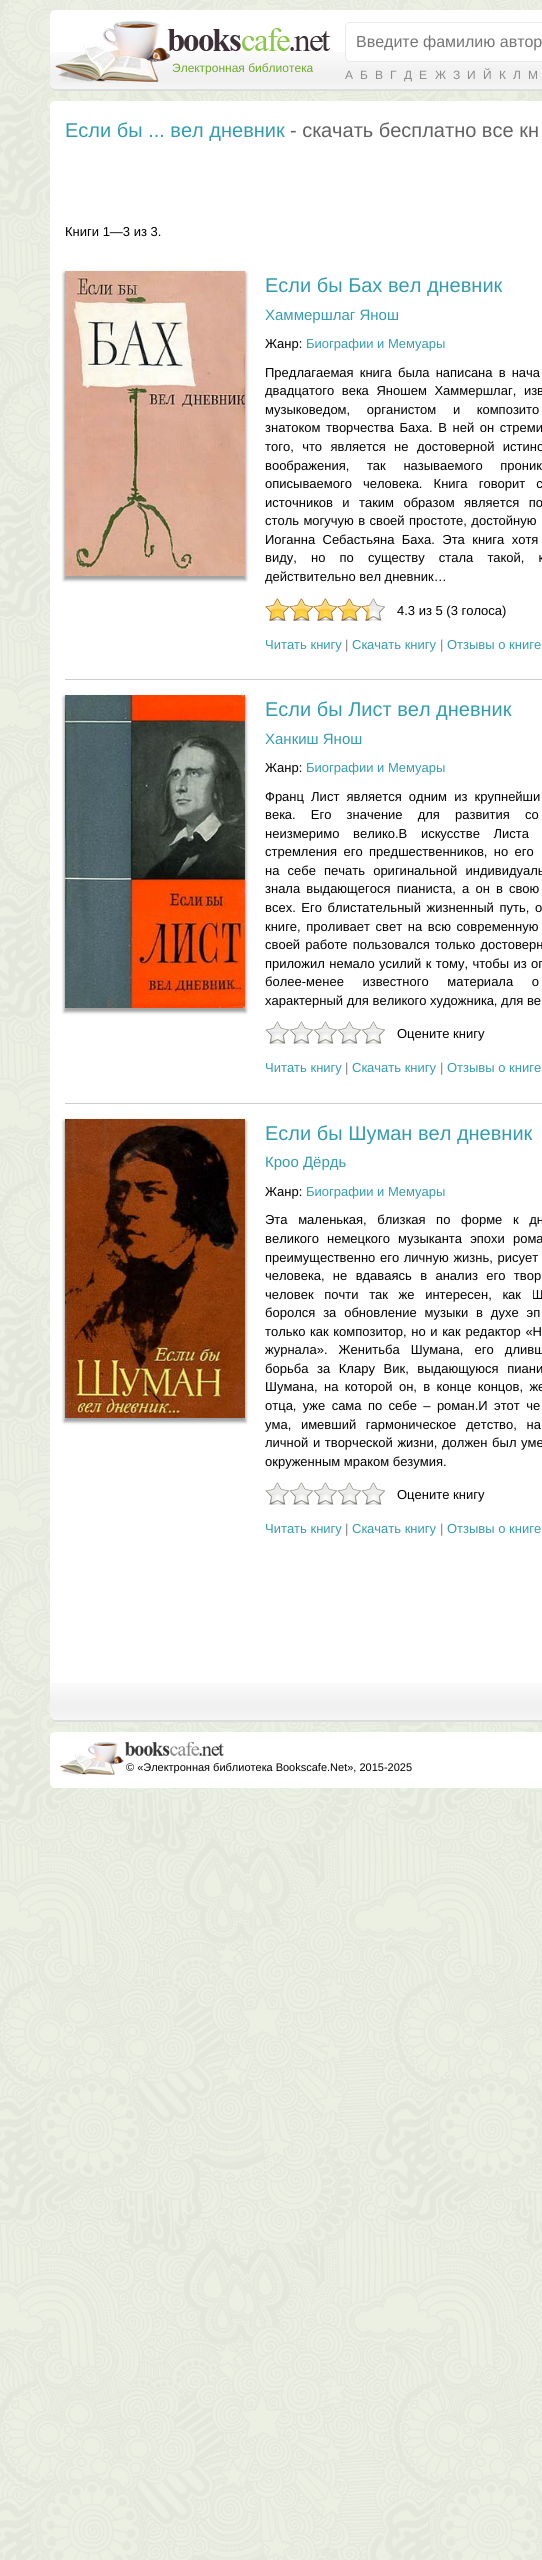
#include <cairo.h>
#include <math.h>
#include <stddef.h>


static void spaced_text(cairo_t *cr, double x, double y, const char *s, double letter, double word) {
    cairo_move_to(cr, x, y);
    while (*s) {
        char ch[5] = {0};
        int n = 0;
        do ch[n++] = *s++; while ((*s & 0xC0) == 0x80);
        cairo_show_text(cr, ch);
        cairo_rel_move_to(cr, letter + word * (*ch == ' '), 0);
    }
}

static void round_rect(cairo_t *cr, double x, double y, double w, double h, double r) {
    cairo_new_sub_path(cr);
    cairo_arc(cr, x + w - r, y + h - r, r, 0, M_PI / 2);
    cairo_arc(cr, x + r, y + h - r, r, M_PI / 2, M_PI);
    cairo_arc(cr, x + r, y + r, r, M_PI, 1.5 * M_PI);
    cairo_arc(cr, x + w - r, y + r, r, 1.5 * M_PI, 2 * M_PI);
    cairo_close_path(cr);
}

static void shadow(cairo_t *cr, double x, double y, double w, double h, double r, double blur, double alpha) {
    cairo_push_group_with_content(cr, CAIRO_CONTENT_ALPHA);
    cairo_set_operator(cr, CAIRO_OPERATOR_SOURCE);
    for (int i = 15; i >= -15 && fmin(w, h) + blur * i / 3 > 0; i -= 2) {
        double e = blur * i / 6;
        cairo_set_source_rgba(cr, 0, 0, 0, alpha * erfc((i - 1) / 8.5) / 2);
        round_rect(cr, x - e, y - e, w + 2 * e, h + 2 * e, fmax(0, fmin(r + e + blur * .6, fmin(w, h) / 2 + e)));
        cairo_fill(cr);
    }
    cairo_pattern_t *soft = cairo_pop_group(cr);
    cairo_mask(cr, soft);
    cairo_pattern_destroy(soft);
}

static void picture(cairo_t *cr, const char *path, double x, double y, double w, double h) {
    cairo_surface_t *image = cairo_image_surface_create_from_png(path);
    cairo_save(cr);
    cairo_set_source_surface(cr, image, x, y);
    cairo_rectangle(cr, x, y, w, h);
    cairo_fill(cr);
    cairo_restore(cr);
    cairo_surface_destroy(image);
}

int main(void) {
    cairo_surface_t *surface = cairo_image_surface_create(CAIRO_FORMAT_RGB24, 542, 2560);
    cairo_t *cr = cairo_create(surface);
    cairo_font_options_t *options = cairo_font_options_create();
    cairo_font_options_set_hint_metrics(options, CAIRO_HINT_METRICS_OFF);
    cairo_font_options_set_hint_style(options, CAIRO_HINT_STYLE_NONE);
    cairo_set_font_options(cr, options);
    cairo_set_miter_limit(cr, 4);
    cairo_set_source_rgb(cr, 1, 1, 1);
    cairo_paint(cr);
    picture(cr, "img1.png", 0, 0, 542, 2560);
    picture(cr, "img2.png", 50, 10, 5, 5);
    cairo_set_source_rgb(cr, 1, 1, 1);
    cairo_rectangle(cr, 55, 10, 487, 5);
    cairo_fill(cr);
    cairo_rectangle(cr, 50, 15, 492, 37);
    cairo_fill(cr);
    picture(cr, "img3.png", 50, 52, 5, 39);
    picture(cr, "img4.png", 55, 52, 487, 39);
    round_rect(cr, 345.5, 22.5, 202, 39, 4.5);
    cairo_fill_preserve(cr);
    cairo_set_source_rgb(cr, 0.902, 0.914, 0.929);
    cairo_set_line_width(cr, 1);
    cairo_stroke(cr);
    cairo_select_font_face(cr, "Liberation Sans", CAIRO_FONT_SLANT_NORMAL, CAIRO_FONT_WEIGHT_NORMAL);
    cairo_set_font_size(cr, 16);
    cairo_set_source_rgb(cr, 0.459, 0.459, 0.459);
    cairo_move_to(cr, 356, 47);
    cairo_show_text(cr, "Введите фамилию автор");
    picture(cr, "img5.png", 55, 20, 276, 63);
    cairo_set_font_size(cr, 12);
    cairo_set_source_rgb(cr, 0.435, 0.663, 0.188);
    cairo_move_to(cr, 172, 72);
    cairo_show_text(cr, "Электронная библиотека");
    cairo_set_source_rgb(cr, 0.545, 0.545, 0.545);
    cairo_move_to(cr, 345, 79);
    cairo_show_text(cr, "А");
    cairo_move_to(cr, 360, 79);
    cairo_show_text(cr, "Б");
    cairo_move_to(cr, 375, 79);
    cairo_show_text(cr, "В");
    cairo_move_to(cr, 390, 79);
    cairo_show_text(cr, "Г");
    cairo_move_to(cr, 404, 79);
    cairo_show_text(cr, "Д");
    cairo_move_to(cr, 419, 79);
    cairo_show_text(cr, "Е");
    cairo_move_to(cr, 435, 79);
    cairo_show_text(cr, "Ж");
    cairo_move_to(cr, 453, 79);
    cairo_show_text(cr, "З");
    cairo_move_to(cr, 467, 79);
    cairo_show_text(cr, "И");
    cairo_move_to(cr, 483, 79);
    cairo_show_text(cr, "Й");
    cairo_move_to(cr, 499, 79);
    cairo_show_text(cr, "К");
    cairo_move_to(cr, 513, 79);
    cairo_show_text(cr, "Л");
    cairo_move_to(cr, 528, 79);
    cairo_show_text(cr, "М");
    picture(cr, "img6.png", 50, 101, 5, 5);
    cairo_set_source_rgb(cr, 1, 1, 1);
    cairo_rectangle(cr, 55, 101, 487, 5);
    cairo_fill(cr);
    cairo_rectangle(cr, 50, 106, 492, 1577);
    cairo_fill(cr);
    picture(cr, "img3.png", 50, 1683, 5, 39);
    picture(cr, "img7.png", 55, 1683, 487, 39);
    cairo_set_font_size(cr, 20);
    cairo_set_source_rgb(cr, 0.208, 0.612, 0.686);
    cairo_move_to(cr, 65, 137);
    cairo_show_text(cr, "Если бы ... вел дневник");
    cairo_set_source_rgb(cr, 0.384, 0.384, 0.384);
    cairo_move_to(cr, 290, 137);
    cairo_show_text(cr, "- скачать бесплатно все кн");
    cairo_set_font_size(cr, 13);
    cairo_set_source_rgb(cr, 0, 0, 0);
    cairo_move_to(cr, 65, 236);
    cairo_show_text(cr, "Книги 1—3 из 3.");
    cairo_set_source_rgb(cr, 0.631, 0.631, 0.631);
    shadow(cr, 64, 273, 182, 307, 0, 1.5, 1);
    picture(cr, "img8.png", 65, 271, 180, 305);
    cairo_set_font_size(cr, 20);
    cairo_set_source_rgb(cr, 0.208, 0.612, 0.686);
    cairo_move_to(cr, 265, 292);
    cairo_show_text(cr, "Если бы Бах вел дневник");
    cairo_set_font_size(cr, 15);
    cairo_move_to(cr, 265, 320);
    cairo_show_text(cr, "Хаммершлаг Янош");
    cairo_set_font_size(cr, 13);
    cairo_set_source_rgb(cr, 0, 0, 0);
    cairo_move_to(cr, 265, 348);
    cairo_show_text(cr, "Жанр:");
    cairo_set_source_rgb(cr, 0.208, 0.612, 0.686);
    cairo_move_to(cr, 306, 348);
    cairo_show_text(cr, "Биографии и Мемуары");
    cairo_set_source_rgb(cr, 0, 0, 0);
    spaced_text(cr, 265, 377, "Предлагаемая книга была написана в нача", 0, 2.5);
    spaced_text(cr, 265, 395, "двадцатого века Яношем Хаммершлаг, изв", 0, 4);
    spaced_text(cr, 265, 414, "музыковедом, органистом и композито", 0, 13);
    spaced_text(cr, 265, 432, "знатоком творчества Баха. В ней он стреми", 0, 2);
    spaced_text(cr, 265, 451, "того, что является не достоверной истино", 0, 4.75);
    spaced_text(cr, 265, 470, "воображения, так называемого проник", 0, 14);
    spaced_text(cr, 265, 488, "описываемого человека. Книга говорит с", 0, 7.5);
    spaced_text(cr, 265, 507, "источников и таким образом является по", 0, 5.75);
    spaced_text(cr, 265, 525, "столь могучую в своей простоте, достойную", 0, 0.75);
    spaced_text(cr, 265, 544, "Иоганна Себастьяна Баха. Эта книга хотя", 0, 3.75);
    spaced_text(cr, 265, 562, "виду, но по существу стала такой, к", 0, 10.5);
    cairo_move_to(cr, 265, 581);
    cairo_show_text(cr, "действительно вел дневник…");
    picture(cr, "img9.png", 265, 598, 120, 23);
    picture(cr, "img10.png", 265, 598, 104, 23);
    cairo_move_to(cr, 397, 615);
    cairo_show_text(cr, "4.3 из 5 (3 голоса)");
    cairo_set_source_rgb(cr, 0.208, 0.612, 0.686);
    cairo_move_to(cr, 265, 649);
    cairo_show_text(cr, "Читать книгу");
    cairo_set_source_rgb(cr, 0.502, 0.502, 0.502);
    cairo_move_to(cr, 345, 649);
    cairo_show_text(cr, "|");
    cairo_set_source_rgb(cr, 0.208, 0.612, 0.686);
    cairo_move_to(cr, 352, 649);
    cairo_show_text(cr, "Скачать книгу");
    cairo_set_source_rgb(cr, 0.502, 0.502, 0.502);
    cairo_move_to(cr, 440, 649);
    cairo_show_text(cr, "|");
    cairo_set_source_rgb(cr, 0.208, 0.612, 0.686);
    cairo_move_to(cr, 447, 649);
    cairo_show_text(cr, "Отзывы о книге");
    cairo_set_source_rgb(cr, 0.8, 0.8, 0.8);
    cairo_rectangle(cr, 65, 679, 477, 1);
    cairo_fill(cr);
    cairo_set_source_rgb(cr, 0.631, 0.631, 0.631);
    shadow(cr, 64, 697, 182, 315, 0, 1.5, 1);
    picture(cr, "img11.png", 65, 695, 180, 313);
    cairo_set_font_size(cr, 20);
    cairo_set_source_rgb(cr, 0.208, 0.612, 0.686);
    cairo_move_to(cr, 265, 716);
    cairo_show_text(cr, "Если бы Лист вел дневник");
    cairo_set_font_size(cr, 15);
    cairo_move_to(cr, 265, 744);
    cairo_show_text(cr, "Ханкиш Янош");
    cairo_set_font_size(cr, 13);
    cairo_set_source_rgb(cr, 0, 0, 0);
    cairo_move_to(cr, 265, 772);
    cairo_show_text(cr, "Жанр:");
    cairo_set_source_rgb(cr, 0.208, 0.612, 0.686);
    cairo_move_to(cr, 306, 772);
    cairo_show_text(cr, "Биографии и Мемуары");
    cairo_set_source_rgb(cr, 0, 0, 0);
    spaced_text(cr, 265, 801, "Франц Лист является одним из крупнейши", 0, 3.5);
    spaced_text(cr, 265, 819, "века. Его значение для развития со", 0, 11.5);
    spaced_text(cr, 265, 838, "неизмеримо велико.В искусстве Листа", 0, 10);
    spaced_text(cr, 265, 856, "стремления его предшественников, но его", 0, 2.75);
    spaced_text(cr, 265, 875, "на себе печать оригинальной индивидуаль", 0, 4.5);
    spaced_text(cr, 265, 893, "знала выдающегося пианиста, а он в свою", 0, 2.5);
    spaced_text(cr, 265, 912, "всех. Его блистательный жизненный путь, о", 0, 2);
    spaced_text(cr, 265, 931, "книге, проливает свет на всю современную", 0, 2);
    spaced_text(cr, 265, 949, "своей работе пользовался только достоверн", 0, 1.5);
    spaced_text(cr, 265, 968, "приложил немало усилий к тому, чтобы из ог", 0, 0.75);
    spaced_text(cr, 265, 986, "более-менее известного материала о", 0, 15);
    cairo_move_to(cr, 265, 1005);
    cairo_show_text(cr, "характерный для великого художника, для ве");
    picture(cr, "img9.png", 265, 1021, 120, 23);
    cairo_move_to(cr, 397, 1038);
    cairo_show_text(cr, "Оцените книгу");
    cairo_set_source_rgb(cr, 0.208, 0.612, 0.686);
    cairo_move_to(cr, 265, 1072);
    cairo_show_text(cr, "Читать книгу");
    cairo_set_source_rgb(cr, 0.502, 0.502, 0.502);
    cairo_move_to(cr, 345, 1072);
    cairo_show_text(cr, "|");
    cairo_set_source_rgb(cr, 0.208, 0.612, 0.686);
    cairo_move_to(cr, 352, 1072);
    cairo_show_text(cr, "Скачать книгу");
    cairo_set_source_rgb(cr, 0.502, 0.502, 0.502);
    cairo_move_to(cr, 440, 1072);
    cairo_show_text(cr, "|");
    cairo_set_source_rgb(cr, 0.208, 0.612, 0.686);
    cairo_move_to(cr, 447, 1072);
    cairo_show_text(cr, "Отзывы о книге");
    cairo_set_source_rgb(cr, 0.8, 0.8, 0.8);
    cairo_rectangle(cr, 65, 1103, 477, 1);
    cairo_fill(cr);
    cairo_set_source_rgb(cr, 0.631, 0.631, 0.631);
    shadow(cr, 64, 1121, 182, 301, 0, 1.5, 1);
    picture(cr, "img12.png", 65, 1119, 180, 299);
    cairo_set_font_size(cr, 20);
    cairo_set_source_rgb(cr, 0.208, 0.612, 0.686);
    cairo_move_to(cr, 265, 1140);
    cairo_show_text(cr, "Если бы Шуман вел дневник");
    cairo_set_font_size(cr, 15);
    cairo_move_to(cr, 265, 1167);
    cairo_show_text(cr, "Кроо Дёрдь");
    cairo_set_font_size(cr, 13);
    cairo_set_source_rgb(cr, 0, 0, 0);
    cairo_move_to(cr, 265, 1196);
    cairo_show_text(cr, "Жанр:");
    cairo_set_source_rgb(cr, 0.208, 0.612, 0.686);
    cairo_move_to(cr, 306, 1196);
    cairo_show_text(cr, "Биографии и Мемуары");
    cairo_set_source_rgb(cr, 0, 0, 0);
    spaced_text(cr, 265, 1224, "Эта маленькая, близкая по форме к дн", 0, 7);
    spaced_text(cr, 265, 1243, "великого немецкого музыканта эпохи рома", 0, 4.5);
    spaced_text(cr, 265, 1262, "преимущественно его личную жизнь, рисует", 0, 1);
    spaced_text(cr, 265, 1280, "человека, не вдаваясь в анализ его твор", 0, 4.75);
    spaced_text(cr, 265, 1299, "человек почти так же интересен, как Ш", 0, 7);
    spaced_text(cr, 265, 1317, "боролся за обновление музыки в духе эп", 0, 4.25);
    spaced_text(cr, 265, 1336, "только как композитор, но и как редактор «Н", 0, 1);
    spaced_text(cr, 265, 1354, "журнала». Женитьба Шумана, его дливш", 0, 7.5);
    spaced_text(cr, 265, 1373, "борьба за Клару Вик, выдающуюся пиани", 0, 5);
    spaced_text(cr, 265, 1391, "Шумана, на которой он, в конце концов, же", 0, 2.75);
    spaced_text(cr, 265, 1410, "отца, уже сама по себе – роман.И этот че", 0, 2.75);
    spaced_text(cr, 265, 1429, "ума, имевший гармоническое детство, на", 0, 6);
    spaced_text(cr, 265, 1447, "личной и творческой жизни, должен был уме", 0, 1);
    cairo_move_to(cr, 265, 1466);
    cairo_show_text(cr, "окруженным мраком безумия.");
    picture(cr, "img9.png", 265, 1482, 120, 23);
    cairo_move_to(cr, 397, 1499);
    cairo_show_text(cr, "Оцените книгу");
    cairo_set_source_rgb(cr, 0.208, 0.612, 0.686);
    cairo_move_to(cr, 265, 1533);
    cairo_show_text(cr, "Читать книгу");
    cairo_set_source_rgb(cr, 0.502, 0.502, 0.502);
    cairo_move_to(cr, 345, 1533);
    cairo_show_text(cr, "|");
    cairo_set_source_rgb(cr, 0.208, 0.612, 0.686);
    cairo_move_to(cr, 352, 1533);
    cairo_show_text(cr, "Скачать книгу");
    cairo_set_source_rgb(cr, 0.502, 0.502, 0.502);
    cairo_move_to(cr, 440, 1533);
    cairo_show_text(cr, "|");
    cairo_set_source_rgb(cr, 0.208, 0.612, 0.686);
    cairo_move_to(cr, 447, 1533);
    cairo_show_text(cr, "Отзывы о книге");
    cairo_set_source_rgb(cr, 1, 1, 1);
    round_rect(cr, 50, 1732, 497, 56, 5);
    cairo_fill(cr);
    picture(cr, "img13.png", 60, 1742, 164, 33);
    cairo_set_font_size(cr, 11);
    cairo_set_source_rgb(cr, 0, 0, 0);
    cairo_move_to(cr, 126, 1771);
    cairo_show_text(cr, "© «Электронная библиотека Bookscafe.Net», 2015-2025");
    cairo_surface_write_to_png(surface, "page.png");
    cairo_font_options_destroy(options);
    cairo_destroy(cr);
    cairo_surface_destroy(surface);
    return 0;
}
